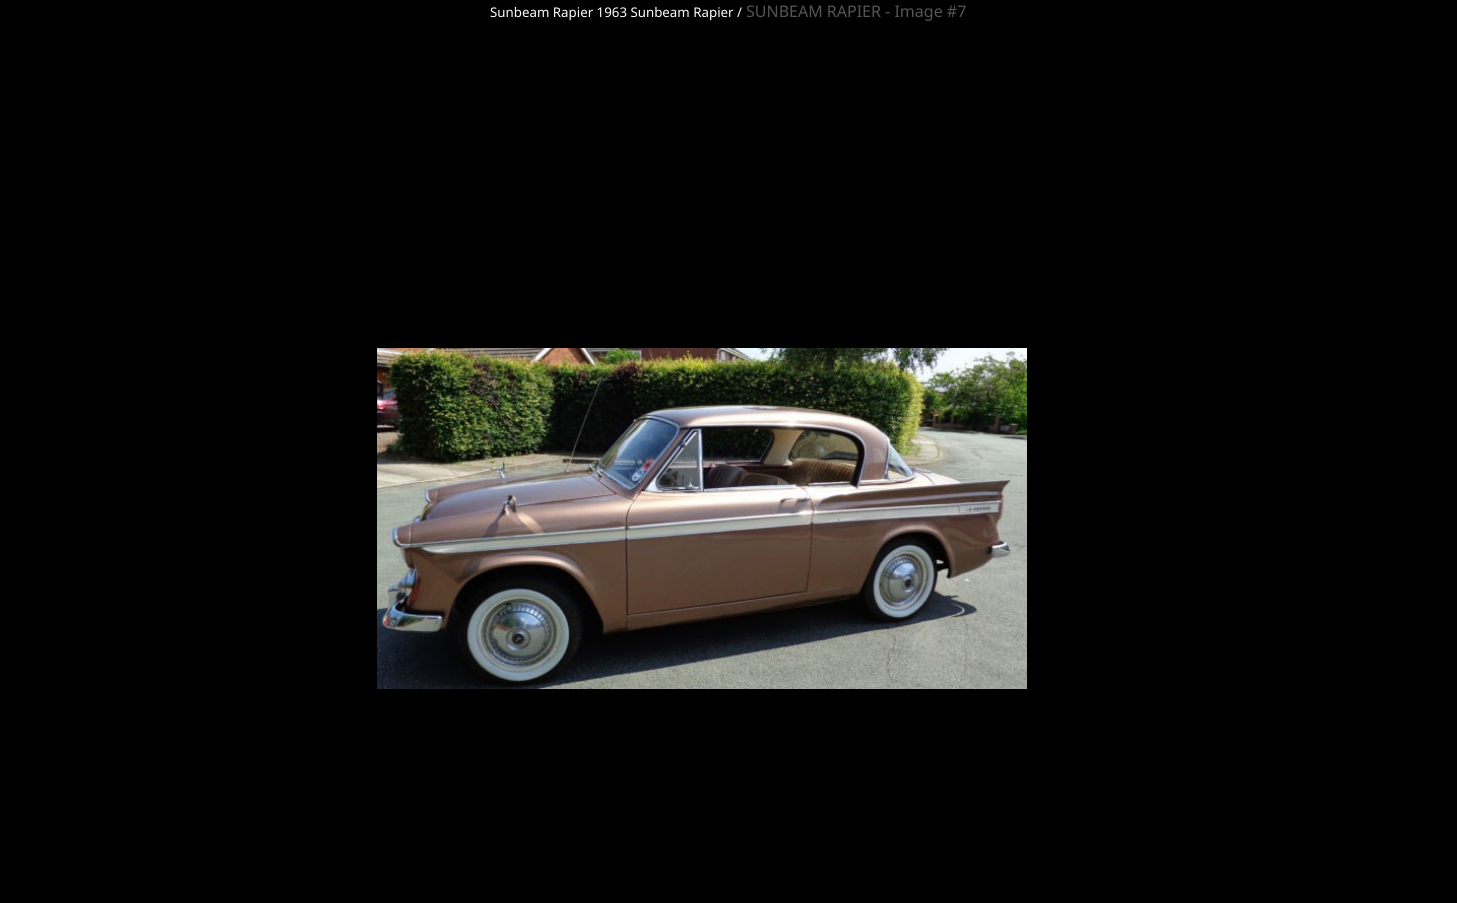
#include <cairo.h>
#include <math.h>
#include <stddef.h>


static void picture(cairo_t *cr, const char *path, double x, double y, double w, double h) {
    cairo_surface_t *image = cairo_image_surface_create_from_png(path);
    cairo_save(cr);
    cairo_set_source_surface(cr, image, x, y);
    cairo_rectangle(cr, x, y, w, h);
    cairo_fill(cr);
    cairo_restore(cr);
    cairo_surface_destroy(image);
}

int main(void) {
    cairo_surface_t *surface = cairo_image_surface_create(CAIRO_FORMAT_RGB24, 1457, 903);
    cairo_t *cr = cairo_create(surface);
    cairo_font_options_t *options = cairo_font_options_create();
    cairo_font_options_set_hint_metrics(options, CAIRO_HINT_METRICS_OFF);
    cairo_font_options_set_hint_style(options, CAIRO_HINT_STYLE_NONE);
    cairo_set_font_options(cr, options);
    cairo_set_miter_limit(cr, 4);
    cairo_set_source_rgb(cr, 0, 0, 0);
    cairo_paint(cr);
    cairo_select_font_face(cr, "Noto Sans", CAIRO_FONT_SLANT_NORMAL, CAIRO_FONT_WEIGHT_NORMAL);
    cairo_set_font_size(cr, 13.3);
    cairo_set_source_rgb(cr, 1, 1, 1);
    cairo_move_to(cr, 490, 17);
    cairo_show_text(cr, "Sunbeam Rapier 1963 Sunbeam Rapier /");
    cairo_set_font_size(cr, 16);
    cairo_set_source_rgb(cr, 0.333, 0.333, 0.333);
    cairo_move_to(cr, 746, 17);
    cairo_show_text(cr, "SUNBEAM RAPIER - Image #7");
    picture(cr, "img1.png", 377, 348, 650, 341);
    cairo_surface_write_to_png(surface, "page.png");
    cairo_font_options_destroy(options);
    cairo_destroy(cr);
    cairo_surface_destroy(surface);
    return 0;
}
